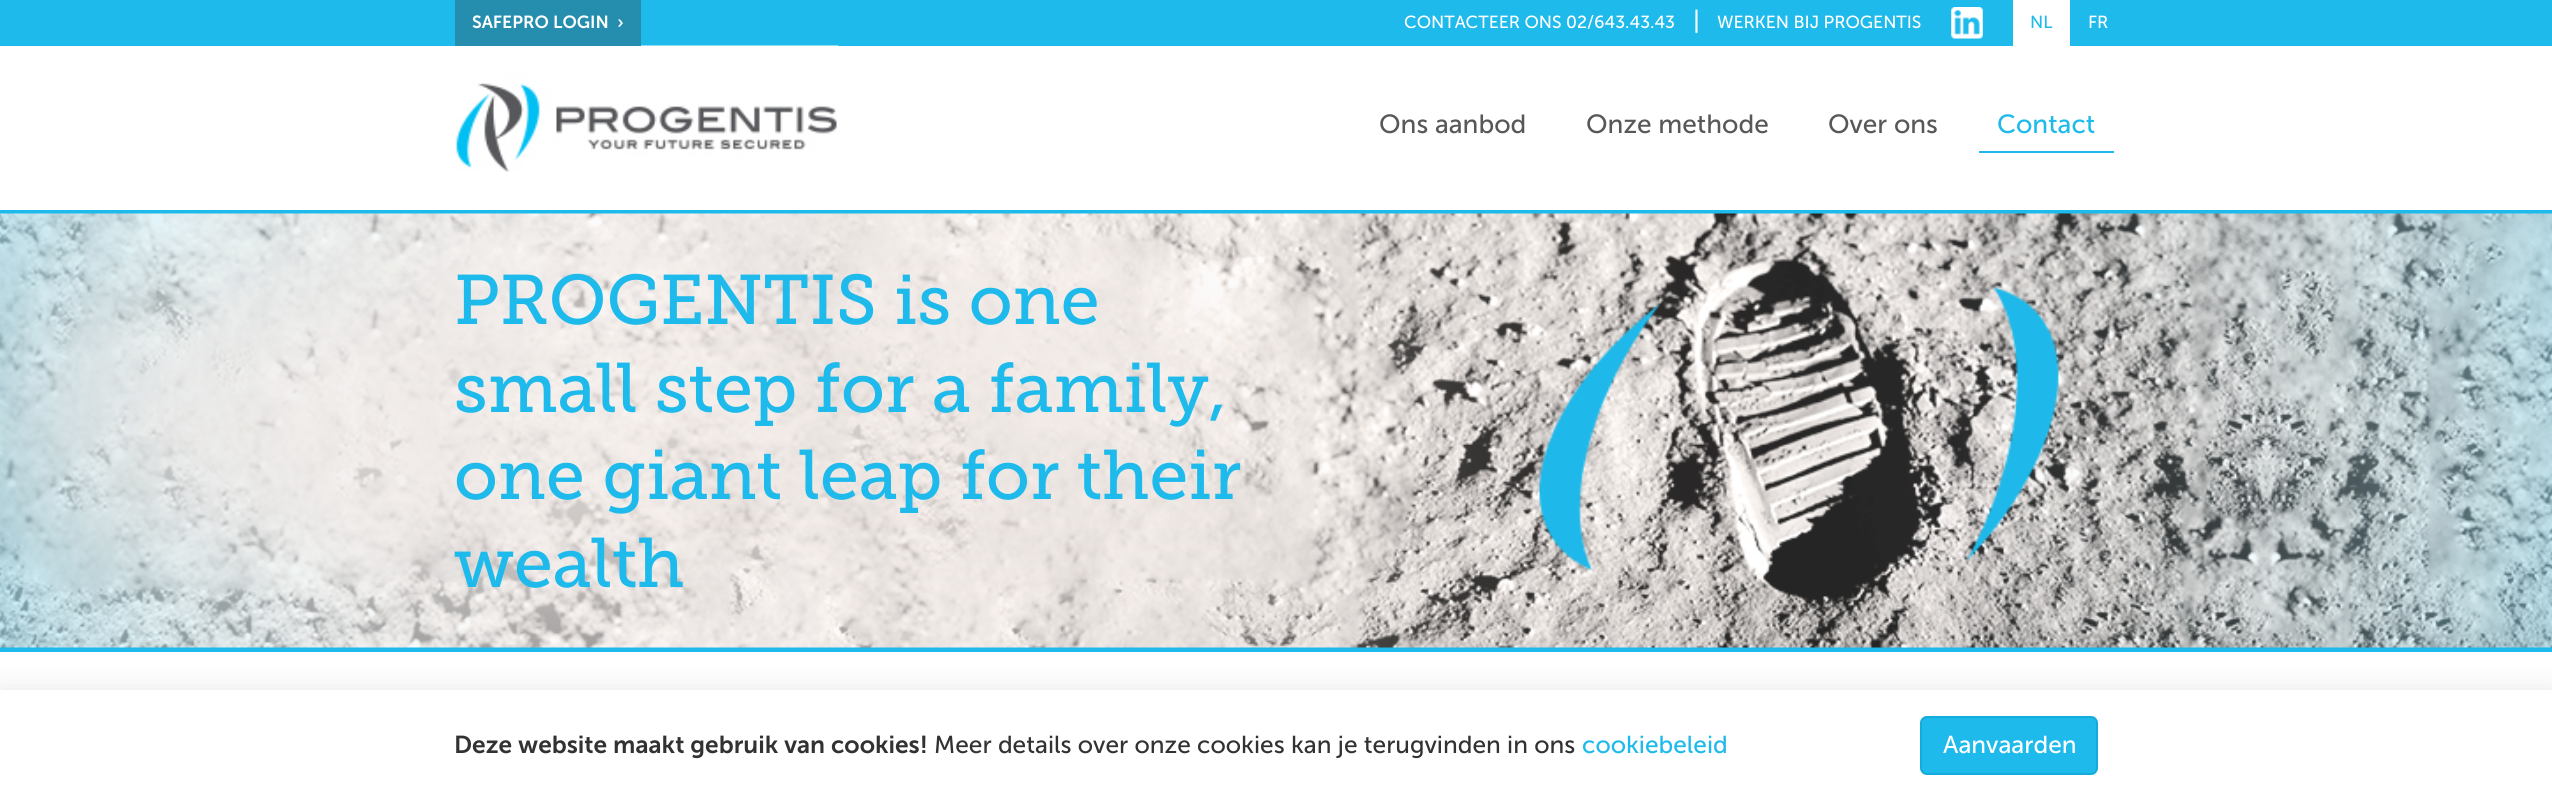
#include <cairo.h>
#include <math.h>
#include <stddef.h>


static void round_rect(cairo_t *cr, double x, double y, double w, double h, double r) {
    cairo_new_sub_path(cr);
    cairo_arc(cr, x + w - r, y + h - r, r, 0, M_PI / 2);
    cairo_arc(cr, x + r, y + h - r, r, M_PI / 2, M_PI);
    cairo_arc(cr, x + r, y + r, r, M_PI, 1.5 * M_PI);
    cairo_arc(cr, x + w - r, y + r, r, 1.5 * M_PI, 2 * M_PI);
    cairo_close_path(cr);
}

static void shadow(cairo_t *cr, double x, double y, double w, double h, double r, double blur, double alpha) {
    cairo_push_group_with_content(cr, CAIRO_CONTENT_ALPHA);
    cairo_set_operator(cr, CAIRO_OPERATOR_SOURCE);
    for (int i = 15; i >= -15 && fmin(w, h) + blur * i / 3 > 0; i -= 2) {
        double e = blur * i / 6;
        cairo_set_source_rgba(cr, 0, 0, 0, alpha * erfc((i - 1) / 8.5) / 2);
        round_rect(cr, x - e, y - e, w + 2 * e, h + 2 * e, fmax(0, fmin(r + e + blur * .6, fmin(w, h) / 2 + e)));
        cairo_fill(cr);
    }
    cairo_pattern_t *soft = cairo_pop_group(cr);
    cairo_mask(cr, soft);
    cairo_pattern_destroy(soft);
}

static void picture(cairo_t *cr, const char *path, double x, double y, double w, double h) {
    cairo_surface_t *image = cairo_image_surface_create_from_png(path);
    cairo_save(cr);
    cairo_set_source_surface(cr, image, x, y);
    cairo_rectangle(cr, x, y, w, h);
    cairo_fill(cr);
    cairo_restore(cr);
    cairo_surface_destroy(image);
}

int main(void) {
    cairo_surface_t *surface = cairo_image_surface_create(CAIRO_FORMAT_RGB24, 2552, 801);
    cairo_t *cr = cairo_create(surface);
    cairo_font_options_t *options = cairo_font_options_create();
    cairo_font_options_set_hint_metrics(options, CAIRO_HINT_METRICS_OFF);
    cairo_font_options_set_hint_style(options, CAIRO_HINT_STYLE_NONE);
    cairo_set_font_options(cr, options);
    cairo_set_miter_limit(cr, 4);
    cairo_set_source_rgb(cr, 1, 1, 1);
    cairo_paint(cr);
    cairo_set_source_rgb(cr, 0.118, 0.729, 0.918);
    cairo_rectangle(cr, 0, 210, 2552, 442);
    cairo_fill(cr);
    cairo_rectangle(cr, 0, 0, 2552, 46);
    cairo_fill(cr);
    picture(cr, "img2.png", 455, 45, 384, 127);
    cairo_set_source_rgb(cr, 0.145, 0.557, 0.686);
    cairo_rectangle(cr, 455, 0, 186, 46);
    cairo_fill(cr);
    cairo_select_font_face(cr, "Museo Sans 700 SemiBold", CAIRO_FONT_SLANT_NORMAL, CAIRO_FONT_WEIGHT_NORMAL);
    cairo_set_font_size(cr, 17.5);
    cairo_set_source_rgb(cr, 1, 1, 1);
    cairo_move_to(cr, 472, 28);
    cairo_show_text(cr, "SAFEPRO LOGIN  ›");
    cairo_select_font_face(cr, "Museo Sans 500", CAIRO_FONT_SLANT_NORMAL, CAIRO_FONT_WEIGHT_NORMAL);
    cairo_move_to(cr, 1404, 28);
    cairo_show_text(cr, "CONTACTEER ONS 02/643.43.43");
    cairo_set_font_size(cr, 24.5);
    cairo_move_to(cr, 1693, 29);
    cairo_show_text(cr, "|");
    cairo_set_font_size(cr, 17.5);
    cairo_move_to(cr, 1717, 28);
    cairo_show_text(cr, "WERKEN BIJ PROGENTIS");
    picture(cr, "img1.png", 1951, 7, 32, 32);
    cairo_rectangle(cr, 2013, 0, 57, 46);
    cairo_fill(cr);
    cairo_set_source_rgb(cr, 0.118, 0.729, 0.918);
    cairo_move_to(cr, 2030, 28);
    cairo_show_text(cr, "NL");
    cairo_set_source_rgb(cr, 1, 1, 1);
    cairo_move_to(cr, 2088, 28);
    cairo_show_text(cr, "FR");
    cairo_set_font_size(cr, 26.25);
    cairo_set_source_rgb(cr, 0.345, 0.345, 0.353);
    cairo_move_to(cr, 1379, 133);
    cairo_show_text(cr, "Ons aanbod");
    cairo_move_to(cr, 1586, 133);
    cairo_show_text(cr, "Onze methode");
    cairo_move_to(cr, 1828, 133);
    cairo_show_text(cr, "Over ons");
    cairo_set_source_rgb(cr, 0.118, 0.729, 0.918);
    cairo_rectangle(cr, 1979, 151, 135, 2);
    cairo_fill(cr);
    cairo_move_to(cr, 1997, 133);
    cairo_show_text(cr, "Contact");
    picture(cr, "img3.png", 0, 213, 2552, 435);
    cairo_select_font_face(cr, "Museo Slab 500", CAIRO_FONT_SLANT_NORMAL, CAIRO_FONT_WEIGHT_NORMAL);
    cairo_set_font_size(cr, 70);
    cairo_move_to(cr, 454, 324);
    cairo_show_text(cr, "PROGENTIS is one");
    cairo_move_to(cr, 454, 412);
    cairo_show_text(cr, "small step for a family,");
    cairo_move_to(cr, 454, 499);
    cairo_show_text(cr, "one giant leap for their");
    cairo_move_to(cr, 454, 587);
    cairo_show_text(cr, "wealth");
    cairo_set_source_rgb(cr, 0, 0, 0);
    shadow(cr, 0, 690, 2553, 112, 0, 13, 0.1);
    cairo_set_source_rgb(cr, 1, 1, 1);
    cairo_rectangle(cr, 0, 690, 2552, 111);
    cairo_fill(cr);
    cairo_select_font_face(cr, "Museo Sans 700 SemiBold", CAIRO_FONT_SLANT_NORMAL, CAIRO_FONT_WEIGHT_NORMAL);
    cairo_set_font_size(cr, 24.5);
    cairo_set_source_rgb(cr, 0.196, 0.196, 0.196);
    cairo_move_to(cr, 454, 753);
    cairo_show_text(cr, "Deze website maakt gebruik van cookies!");
    cairo_select_font_face(cr, "Museo Sans 500", CAIRO_FONT_SLANT_NORMAL, CAIRO_FONT_WEIGHT_NORMAL);
    cairo_move_to(cr, 934, 753);
    cairo_show_text(cr, "Meer details over onze cookies kan je terugvinden in ons");
    cairo_set_source_rgb(cr, 0.118, 0.729, 0.918);
    cairo_move_to(cr, 1582, 753);
    cairo_show_text(cr, "cookiebeleid");
    round_rect(cr, 1921, 717, 176, 57, 6);
    cairo_fill_preserve(cr);
    cairo_set_source_rgb(cr, 0.078, 0.675, 0.855);
    cairo_stroke(cr);
    cairo_set_source_rgb(cr, 1, 1, 1);
    cairo_move_to(cr, 1943, 753);
    cairo_show_text(cr, "Aanvaarden");
    cairo_surface_write_to_png(surface, "page.png");
    cairo_font_options_destroy(options);
    cairo_destroy(cr);
    cairo_surface_destroy(surface);
    return 0;
}
